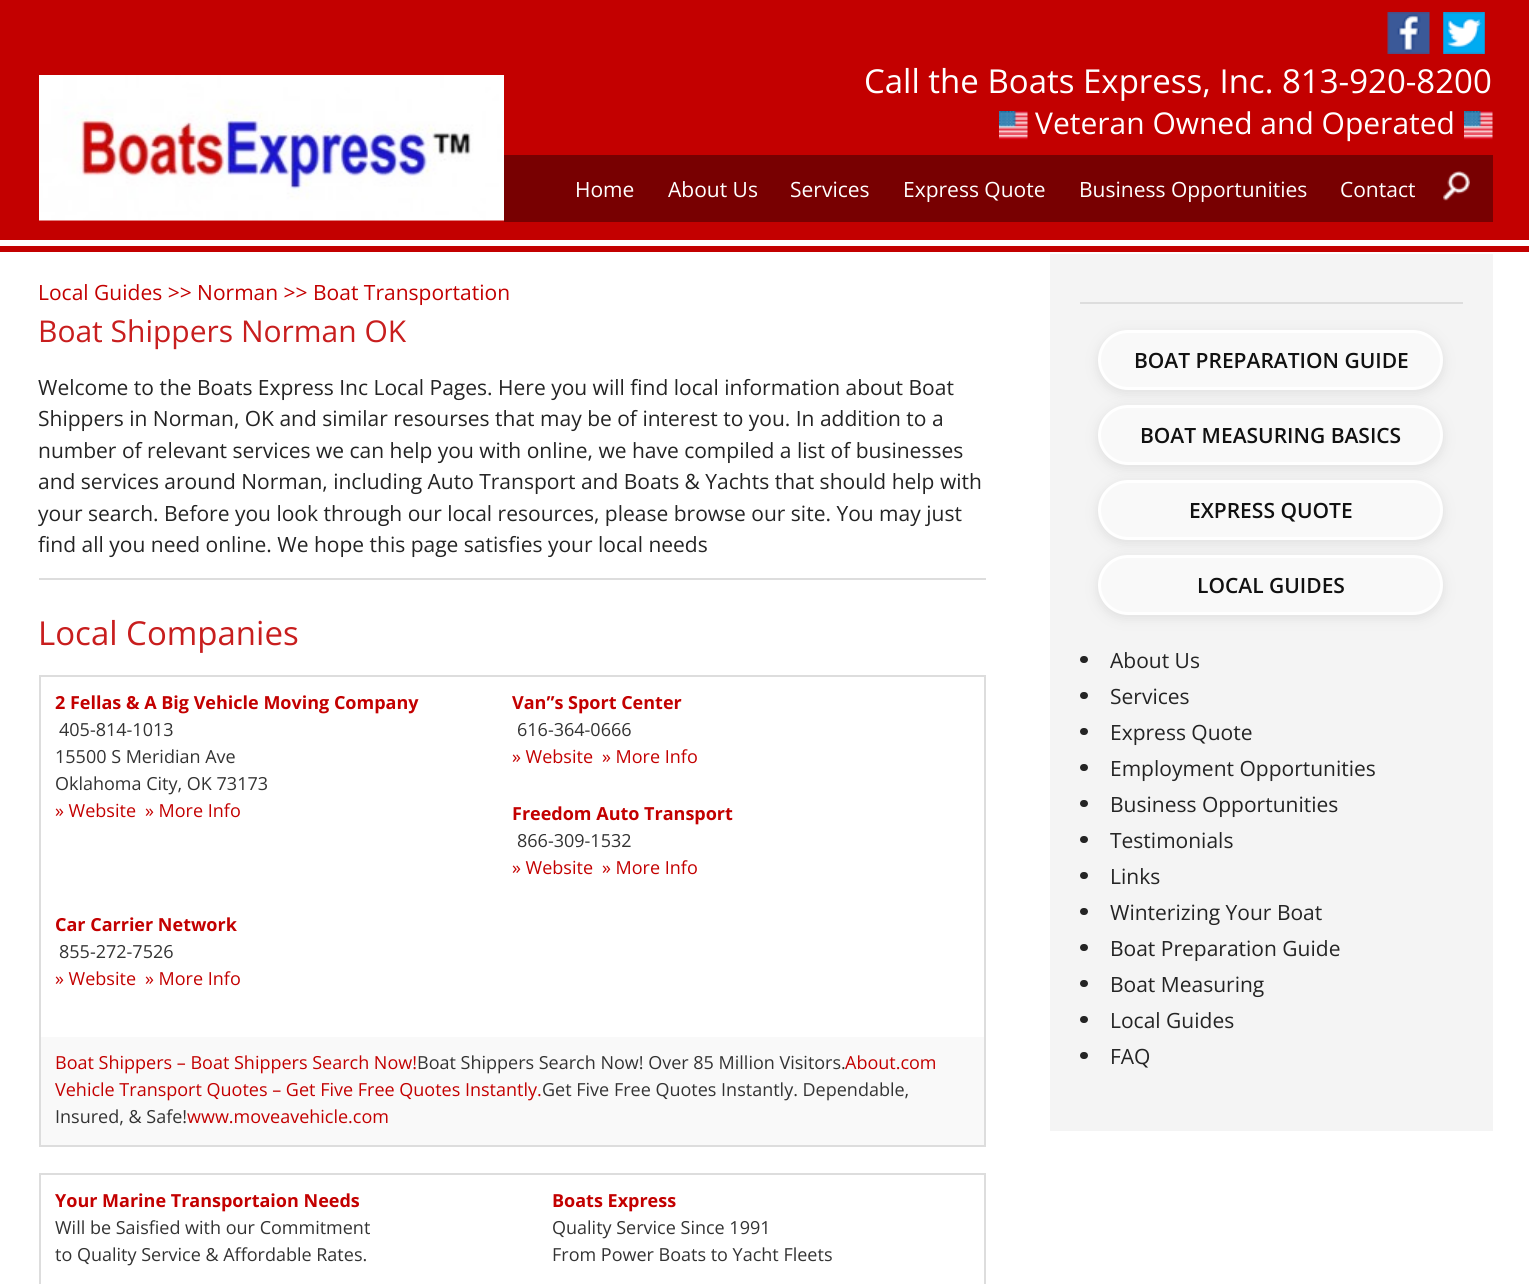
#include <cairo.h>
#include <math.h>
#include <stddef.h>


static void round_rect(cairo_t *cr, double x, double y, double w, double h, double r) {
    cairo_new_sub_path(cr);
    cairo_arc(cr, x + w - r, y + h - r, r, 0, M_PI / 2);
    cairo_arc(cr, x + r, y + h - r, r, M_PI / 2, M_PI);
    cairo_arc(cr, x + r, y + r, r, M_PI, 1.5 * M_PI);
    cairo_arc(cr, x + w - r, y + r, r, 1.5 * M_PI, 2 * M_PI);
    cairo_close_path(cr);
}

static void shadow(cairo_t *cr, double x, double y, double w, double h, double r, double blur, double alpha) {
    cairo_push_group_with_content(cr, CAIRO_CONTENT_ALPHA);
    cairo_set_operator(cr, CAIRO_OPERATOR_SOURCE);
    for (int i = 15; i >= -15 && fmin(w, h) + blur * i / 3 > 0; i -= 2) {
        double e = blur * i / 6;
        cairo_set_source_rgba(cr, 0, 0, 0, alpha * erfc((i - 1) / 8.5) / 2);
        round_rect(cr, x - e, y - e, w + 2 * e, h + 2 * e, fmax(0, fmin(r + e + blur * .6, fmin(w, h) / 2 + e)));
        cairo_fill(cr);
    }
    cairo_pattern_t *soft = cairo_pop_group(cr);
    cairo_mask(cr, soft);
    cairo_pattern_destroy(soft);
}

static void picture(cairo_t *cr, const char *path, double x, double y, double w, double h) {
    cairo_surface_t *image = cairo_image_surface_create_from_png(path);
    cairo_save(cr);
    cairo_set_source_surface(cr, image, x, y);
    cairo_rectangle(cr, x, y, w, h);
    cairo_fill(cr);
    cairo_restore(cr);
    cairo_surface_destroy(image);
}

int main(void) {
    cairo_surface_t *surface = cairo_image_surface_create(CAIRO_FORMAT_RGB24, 1529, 1284);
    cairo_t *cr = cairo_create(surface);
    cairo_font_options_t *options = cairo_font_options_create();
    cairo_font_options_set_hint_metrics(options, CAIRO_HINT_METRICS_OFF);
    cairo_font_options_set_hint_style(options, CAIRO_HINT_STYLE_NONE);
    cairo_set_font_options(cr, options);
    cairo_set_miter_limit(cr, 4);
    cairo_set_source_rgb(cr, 1, 1, 1);
    cairo_paint(cr);
    cairo_set_source_rgb(cr, 0.765, 0, 0);
    cairo_rectangle(cr, 0, 0, 1529, 252);
    cairo_fill(cr);
    picture(cr, "img1.png", 39, 75, 465, 146);
    picture(cr, "img2.png", 1387, 12, 43, 42);
    picture(cr, "img3.png", 1443, 12, 42, 42);
    cairo_select_font_face(cr, "Open Sans", CAIRO_FONT_SLANT_NORMAL, CAIRO_FONT_WEIGHT_NORMAL);
    cairo_set_font_size(cr, 33);
    cairo_set_source_rgb(cr, 1, 1, 1);
    cairo_move_to(cr, 864, 93);
    cairo_show_text(cr, "Call the Boats Express, Inc. 813-920-8200");
    picture(cr, "img4.png", 999, 111, 29, 29);
    cairo_set_font_size(cr, 30);
    cairo_move_to(cr, 1035, 134);
    cairo_show_text(cr, "Veteran Owned and Operated");
    picture(cr, "img5.png", 1464, 111, 29, 29);
    cairo_set_source_rgb(cr, 0.471, 0, 0.004);
    cairo_rectangle(cr, 504, 155, 989, 67);
    cairo_fill(cr);
    cairo_set_font_size(cr, 21);
    cairo_set_source_rgb(cr, 1, 1, 1);
    cairo_move_to(cr, 575, 197);
    cairo_show_text(cr, "Home");
    cairo_move_to(cr, 668, 197);
    cairo_show_text(cr, "About Us");
    cairo_move_to(cr, 790, 197);
    cairo_show_text(cr, "Services");
    cairo_move_to(cr, 903, 197);
    cairo_show_text(cr, "Express Quote");
    cairo_move_to(cr, 1079, 197);
    cairo_show_text(cr, "Business Opportunities");
    cairo_move_to(cr, 1340, 197);
    cairo_show_text(cr, "Contact");
    picture(cr, "img6.png", 1443, 171, 27, 30);
    cairo_rectangle(cr, 0, 240, 1529, 6);
    cairo_fill(cr);
    cairo_set_source_rgb(cr, 0.765, 0, 0);
    cairo_move_to(cr, 38, 300);
    cairo_show_text(cr, "Local Guides >> Norman >> Boat Transportation");
    cairo_set_font_size(cr, 30);
    cairo_set_source_rgb(cr, 0.784, 0.118, 0.118);
    cairo_move_to(cr, 38, 342);
    cairo_show_text(cr, "Boat Shippers Norman OK");
    cairo_set_font_size(cr, 21);
    cairo_set_source_rgb(cr, 0.141, 0.141, 0.141);
    cairo_move_to(cr, 38, 395);
    cairo_show_text(cr, "Welcome to the Boats Express Inc Local Pages. Here you will find local information about Boat");
    cairo_move_to(cr, 38, 426);
    cairo_show_text(cr, "Shippers in Norman, OK and similar resourses that may be of interest to you. In addition to a");
    cairo_move_to(cr, 38, 458);
    cairo_show_text(cr, "number of relevant services we can help you with online, we have compiled a list of businesses");
    cairo_move_to(cr, 38, 489);
    cairo_show_text(cr, "and services around Norman, including Auto Transport and Boats & Yachts that should help with");
    cairo_move_to(cr, 38, 521);
    cairo_show_text(cr, "your search. Before you look through our local resources, please browse our site. You may just");
    cairo_move_to(cr, 38, 552);
    cairo_show_text(cr, "find all you need online. We hope this page satisfies your local needs");
    cairo_set_source_rgb(cr, 0.867, 0.867, 0.867);
    cairo_rectangle(cr, 39, 578, 947, 2);
    cairo_fill(cr);
    cairo_set_font_size(cr, 33);
    cairo_set_source_rgb(cr, 0.784, 0.118, 0.118);
    cairo_move_to(cr, 38, 645);
    cairo_show_text(cr, "Local Companies");
    cairo_set_source_rgb(cr, 0.867, 0.867, 0.867);
    cairo_rectangle(cr, 39, 675, 947, 2);
    cairo_fill(cr);
    cairo_rectangle(cr, 984, 675, 2, 471);
    cairo_fill(cr);
    cairo_rectangle(cr, 39, 1145, 947, 2);
    cairo_fill(cr);
    cairo_rectangle(cr, 39, 675, 2, 471);
    cairo_fill(cr);
    cairo_select_font_face(cr, "Open Sans", CAIRO_FONT_SLANT_NORMAL, CAIRO_FONT_WEIGHT_BOLD);
    cairo_set_font_size(cr, 18);
    cairo_set_source_rgb(cr, 0.765, 0, 0);
    cairo_move_to(cr, 55, 709);
    cairo_show_text(cr, "2 Fellas & A Big Vehicle Moving Company");
    cairo_select_font_face(cr, "Open Sans", CAIRO_FONT_SLANT_NORMAL, CAIRO_FONT_WEIGHT_NORMAL);
    cairo_set_source_rgb(cr, 0.2, 0.2, 0.2);
    cairo_move_to(cr, 59, 736);
    cairo_show_text(cr, "405-814-1013");
    cairo_move_to(cr, 55, 763);
    cairo_show_text(cr, "15500 S Meridian Ave");
    cairo_move_to(cr, 55, 790);
    cairo_show_text(cr, "Oklahoma City, OK 73173");
    cairo_set_source_rgb(cr, 0.765, 0, 0);
    cairo_move_to(cr, 55, 817);
    cairo_show_text(cr, "» Website");
    cairo_move_to(cr, 145, 817);
    cairo_show_text(cr, "» More Info");
    cairo_select_font_face(cr, "Open Sans", CAIRO_FONT_SLANT_NORMAL, CAIRO_FONT_WEIGHT_BOLD);
    cairo_move_to(cr, 512, 709);
    cairo_show_text(cr, "Van”s Sport Center");
    cairo_select_font_face(cr, "Open Sans", CAIRO_FONT_SLANT_NORMAL, CAIRO_FONT_WEIGHT_NORMAL);
    cairo_set_source_rgb(cr, 0.2, 0.2, 0.2);
    cairo_move_to(cr, 517, 736);
    cairo_show_text(cr, "616-364-0666");
    cairo_set_source_rgb(cr, 0.765, 0, 0);
    cairo_move_to(cr, 512, 763);
    cairo_show_text(cr, "» Website");
    cairo_move_to(cr, 602, 763);
    cairo_show_text(cr, "» More Info");
    cairo_select_font_face(cr, "Open Sans", CAIRO_FONT_SLANT_NORMAL, CAIRO_FONT_WEIGHT_BOLD);
    cairo_move_to(cr, 512, 820);
    cairo_show_text(cr, "Freedom Auto Transport");
    cairo_select_font_face(cr, "Open Sans", CAIRO_FONT_SLANT_NORMAL, CAIRO_FONT_WEIGHT_NORMAL);
    cairo_set_source_rgb(cr, 0.2, 0.2, 0.2);
    cairo_move_to(cr, 517, 847);
    cairo_show_text(cr, "866-309-1532");
    cairo_set_source_rgb(cr, 0.765, 0, 0);
    cairo_move_to(cr, 512, 874);
    cairo_show_text(cr, "» Website");
    cairo_move_to(cr, 602, 874);
    cairo_show_text(cr, "» More Info");
    cairo_select_font_face(cr, "Open Sans", CAIRO_FONT_SLANT_NORMAL, CAIRO_FONT_WEIGHT_BOLD);
    cairo_move_to(cr, 55, 931);
    cairo_show_text(cr, "Car Carrier Network");
    cairo_select_font_face(cr, "Open Sans", CAIRO_FONT_SLANT_NORMAL, CAIRO_FONT_WEIGHT_NORMAL);
    cairo_set_source_rgb(cr, 0.2, 0.2, 0.2);
    cairo_move_to(cr, 59, 958);
    cairo_show_text(cr, "855-272-7526");
    cairo_set_source_rgb(cr, 0.765, 0, 0);
    cairo_move_to(cr, 55, 985);
    cairo_show_text(cr, "» Website");
    cairo_move_to(cr, 145, 985);
    cairo_show_text(cr, "» More Info");
    cairo_set_source_rgb(cr, 0.976, 0.976, 0.976);
    cairo_rectangle(cr, 41, 1037, 943, 108);
    cairo_fill(cr);
    cairo_set_source_rgb(cr, 0.765, 0, 0);
    cairo_move_to(cr, 55, 1069);
    cairo_show_text(cr, "Boat Shippers – Boat Shippers Search Now!");
    cairo_set_source_rgb(cr, 0.2, 0.2, 0.2);
    cairo_move_to(cr, 417, 1069);
    cairo_show_text(cr, "Boat Shippers Search Now! Over 85 Million Visitors.");
    cairo_set_source_rgb(cr, 0.765, 0, 0);
    cairo_move_to(cr, 845, 1069);
    cairo_show_text(cr, "About.com");
    cairo_move_to(cr, 55, 1096);
    cairo_show_text(cr, "Vehicle Transport Quotes – Get Five Free Quotes Instantly.");
    cairo_set_source_rgb(cr, 0.2, 0.2, 0.2);
    cairo_move_to(cr, 542, 1096);
    cairo_show_text(cr, "Get Five Free Quotes Instantly. Dependable,");
    cairo_move_to(cr, 55, 1123);
    cairo_show_text(cr, "Insured, & Safe!");
    cairo_set_source_rgb(cr, 0.765, 0, 0);
    cairo_move_to(cr, 187, 1123);
    cairo_show_text(cr, "www.moveavehicle.com");
    cairo_set_source_rgb(cr, 0.867, 0.867, 0.867);
    cairo_rectangle(cr, 39, 1173, 947, 2);
    cairo_fill(cr);
    cairo_rectangle(cr, 984, 1173, 2, 111);
    cairo_fill(cr);
    cairo_rectangle(cr, 39, 1173, 2, 111);
    cairo_fill(cr);
    cairo_select_font_face(cr, "Open Sans", CAIRO_FONT_SLANT_NORMAL, CAIRO_FONT_WEIGHT_BOLD);
    cairo_set_source_rgb(cr, 0.765, 0, 0);
    cairo_move_to(cr, 55, 1207);
    cairo_show_text(cr, "Your Marine Transportaion Needs");
    cairo_select_font_face(cr, "Open Sans", CAIRO_FONT_SLANT_NORMAL, CAIRO_FONT_WEIGHT_NORMAL);
    cairo_set_source_rgb(cr, 0.2, 0.2, 0.2);
    cairo_move_to(cr, 55, 1234);
    cairo_show_text(cr, "Will be Saisfied with our Commitment");
    cairo_move_to(cr, 55, 1261);
    cairo_show_text(cr, "to Quality Service & Affordable Rates.");
    cairo_select_font_face(cr, "Open Sans", CAIRO_FONT_SLANT_NORMAL, CAIRO_FONT_WEIGHT_BOLD);
    cairo_set_source_rgb(cr, 0.765, 0, 0);
    cairo_move_to(cr, 552, 1207);
    cairo_show_text(cr, "Boats Express");
    cairo_select_font_face(cr, "Open Sans", CAIRO_FONT_SLANT_NORMAL, CAIRO_FONT_WEIGHT_NORMAL);
    cairo_set_source_rgb(cr, 0.2, 0.2, 0.2);
    cairo_move_to(cr, 552, 1234);
    cairo_show_text(cr, "Quality Service Since 1991");
    cairo_move_to(cr, 552, 1261);
    cairo_show_text(cr, "From Power Boats to Yacht Fleets");
    cairo_set_source_rgb(cr, 0.957, 0.957, 0.957);
    cairo_rectangle(cr, 1050, 254, 443, 877);
    cairo_fill(cr);
    cairo_set_source_rgb(cr, 0.867, 0.867, 0.867);
    cairo_rectangle(cr, 1080, 302, 383, 2);
    cairo_fill(cr);
    cairo_set_source_rgb(cr, 0.875, 0.875, 0.875);
    shadow(cr, 1098, 333, 345, 60, 30, 6, 1);
    cairo_set_source_rgb(cr, 0.976, 0.976, 0.976);
    round_rect(cr, 1099.5, 331.5, 342, 57, 28.5);
    cairo_fill_preserve(cr);
    cairo_set_source_rgb(cr, 1, 1, 1);
    cairo_set_line_width(cr, 3);
    cairo_stroke(cr);
    cairo_select_font_face(cr, "Open Sans SemiBold", CAIRO_FONT_SLANT_NORMAL, CAIRO_FONT_WEIGHT_NORMAL);
    cairo_set_font_size(cr, 21);
    cairo_set_source_rgb(cr, 0.067, 0.067, 0.067);
    cairo_move_to(cr, 1134, 368);
    cairo_show_text(cr, "BOAT PREPARATION GUIDE");
    cairo_set_source_rgb(cr, 0.875, 0.875, 0.875);
    shadow(cr, 1098, 408, 345, 60, 30, 6, 1);
    cairo_set_source_rgb(cr, 0.976, 0.976, 0.976);
    round_rect(cr, 1099.5, 406.5, 342, 57, 28.5);
    cairo_fill_preserve(cr);
    cairo_set_source_rgb(cr, 1, 1, 1);
    cairo_stroke(cr);
    cairo_set_source_rgb(cr, 0.067, 0.067, 0.067);
    cairo_move_to(cr, 1140, 443);
    cairo_show_text(cr, "BOAT MEASURING BASICS");
    cairo_set_source_rgb(cr, 0.875, 0.875, 0.875);
    shadow(cr, 1098, 483, 345, 60, 30, 6, 1);
    cairo_set_source_rgb(cr, 0.976, 0.976, 0.976);
    round_rect(cr, 1099.5, 481.5, 342, 57, 28.5);
    cairo_fill_preserve(cr);
    cairo_set_source_rgb(cr, 1, 1, 1);
    cairo_stroke(cr);
    cairo_set_source_rgb(cr, 0.067, 0.067, 0.067);
    cairo_move_to(cr, 1189, 518);
    cairo_show_text(cr, "EXPRESS QUOTE");
    cairo_set_source_rgb(cr, 0.875, 0.875, 0.875);
    shadow(cr, 1098, 558, 345, 60, 30, 6, 1);
    cairo_set_source_rgb(cr, 0.976, 0.976, 0.976);
    round_rect(cr, 1099.5, 556.5, 342, 57, 28.5);
    cairo_fill_preserve(cr);
    cairo_set_source_rgb(cr, 1, 1, 1);
    cairo_stroke(cr);
    cairo_set_source_rgb(cr, 0.067, 0.067, 0.067);
    cairo_move_to(cr, 1197, 593);
    cairo_show_text(cr, "LOCAL GUIDES");
    cairo_set_source_rgb(cr, 0.141, 0.141, 0.141);
    round_rect(cr, 1080, 656, 8, 7, 3.5);
    cairo_fill(cr);
    cairo_select_font_face(cr, "Open Sans", CAIRO_FONT_SLANT_NORMAL, CAIRO_FONT_WEIGHT_NORMAL);
    cairo_move_to(cr, 1110, 668);
    cairo_show_text(cr, "About Us");
    round_rect(cr, 1080, 692, 8, 7, 3.5);
    cairo_fill(cr);
    cairo_move_to(cr, 1110, 704);
    cairo_show_text(cr, "Services");
    round_rect(cr, 1080, 728, 8, 7, 3.5);
    cairo_fill(cr);
    cairo_move_to(cr, 1110, 740);
    cairo_show_text(cr, "Express Quote");
    round_rect(cr, 1080, 764, 8, 7, 3.5);
    cairo_fill(cr);
    cairo_move_to(cr, 1110, 776);
    cairo_show_text(cr, "Employment Opportunities");
    round_rect(cr, 1080, 800, 8, 7, 3.5);
    cairo_fill(cr);
    cairo_move_to(cr, 1110, 812);
    cairo_show_text(cr, "Business Opportunities");
    round_rect(cr, 1080, 836, 8, 7, 3.5);
    cairo_fill(cr);
    cairo_move_to(cr, 1110, 848);
    cairo_show_text(cr, "Testimonials");
    round_rect(cr, 1080, 872, 8, 7, 3.5);
    cairo_fill(cr);
    cairo_move_to(cr, 1110, 884);
    cairo_show_text(cr, "Links");
    round_rect(cr, 1080, 908, 8, 7, 3.5);
    cairo_fill(cr);
    cairo_move_to(cr, 1110, 920);
    cairo_show_text(cr, "Winterizing Your Boat");
    round_rect(cr, 1080, 944, 8, 7, 3.5);
    cairo_fill(cr);
    cairo_move_to(cr, 1110, 956);
    cairo_show_text(cr, "Boat Preparation Guide");
    round_rect(cr, 1080, 980, 8, 7, 3.5);
    cairo_fill(cr);
    cairo_move_to(cr, 1110, 992);
    cairo_show_text(cr, "Boat Measuring");
    round_rect(cr, 1080, 1016, 8, 7, 3.5);
    cairo_fill(cr);
    cairo_move_to(cr, 1110, 1028);
    cairo_show_text(cr, "Local Guides");
    round_rect(cr, 1080, 1052, 8, 7, 3.5);
    cairo_fill(cr);
    cairo_move_to(cr, 1110, 1064);
    cairo_show_text(cr, "FAQ");
    cairo_surface_write_to_png(surface, "page.png");
    cairo_font_options_destroy(options);
    cairo_destroy(cr);
    cairo_surface_destroy(surface);
    return 0;
}
